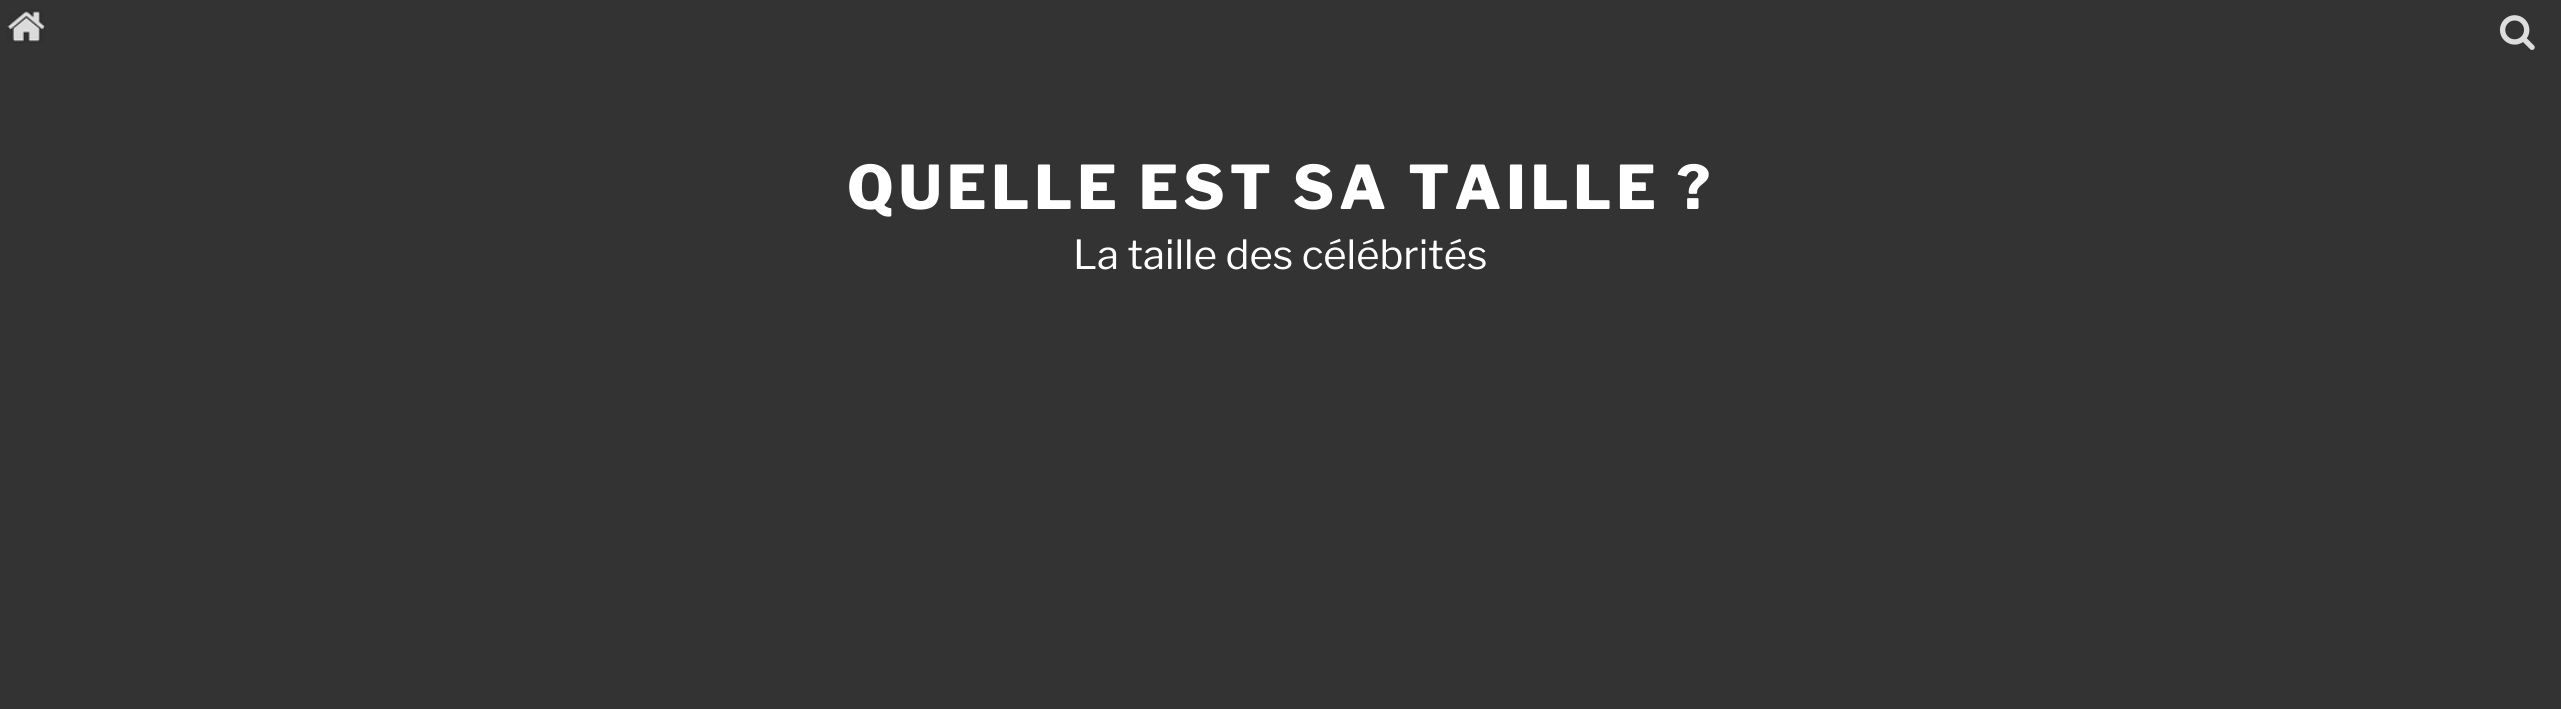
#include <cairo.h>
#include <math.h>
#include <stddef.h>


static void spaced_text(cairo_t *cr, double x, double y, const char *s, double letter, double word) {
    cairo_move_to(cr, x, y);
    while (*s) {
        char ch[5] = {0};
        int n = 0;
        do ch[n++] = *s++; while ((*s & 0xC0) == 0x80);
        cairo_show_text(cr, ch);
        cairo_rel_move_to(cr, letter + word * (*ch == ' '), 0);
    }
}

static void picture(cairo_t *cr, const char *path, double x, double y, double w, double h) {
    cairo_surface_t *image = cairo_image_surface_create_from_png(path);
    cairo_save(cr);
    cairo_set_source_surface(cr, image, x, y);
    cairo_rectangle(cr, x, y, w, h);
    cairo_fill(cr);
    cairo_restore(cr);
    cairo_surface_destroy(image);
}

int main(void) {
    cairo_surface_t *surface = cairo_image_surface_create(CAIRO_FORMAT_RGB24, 2561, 709);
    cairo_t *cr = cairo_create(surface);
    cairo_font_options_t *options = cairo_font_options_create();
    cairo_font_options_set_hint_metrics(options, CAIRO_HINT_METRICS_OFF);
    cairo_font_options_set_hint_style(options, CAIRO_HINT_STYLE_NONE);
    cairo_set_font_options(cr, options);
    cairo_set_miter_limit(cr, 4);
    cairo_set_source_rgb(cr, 0.2, 0.2, 0.2);
    cairo_paint(cr);
    picture(cr, "img1.png", 7, 10, 38, 33);
    picture(cr, "img2.png", 2499, 15, 36, 35);
    cairo_select_font_face(cr, "Libre Franklin ExtraBold", CAIRO_FONT_SLANT_NORMAL, CAIRO_FONT_WEIGHT_NORMAL);
    cairo_set_font_size(cr, 60);
    cairo_set_source_rgb(cr, 1, 1, 1);
    spaced_text(cr, 847, 209, "QUELLE EST SA TAILLE ?", 4.8, 0);
    cairo_select_font_face(cr, "Libre Franklin", CAIRO_FONT_SLANT_NORMAL, CAIRO_FONT_WEIGHT_NORMAL);
    cairo_set_font_size(cr, 40);
    cairo_move_to(cr, 1073, 269);
    cairo_show_text(cr, "La taille des célébrités");
    cairo_surface_write_to_png(surface, "page.png");
    cairo_font_options_destroy(options);
    cairo_destroy(cr);
    cairo_surface_destroy(surface);
    return 0;
}
